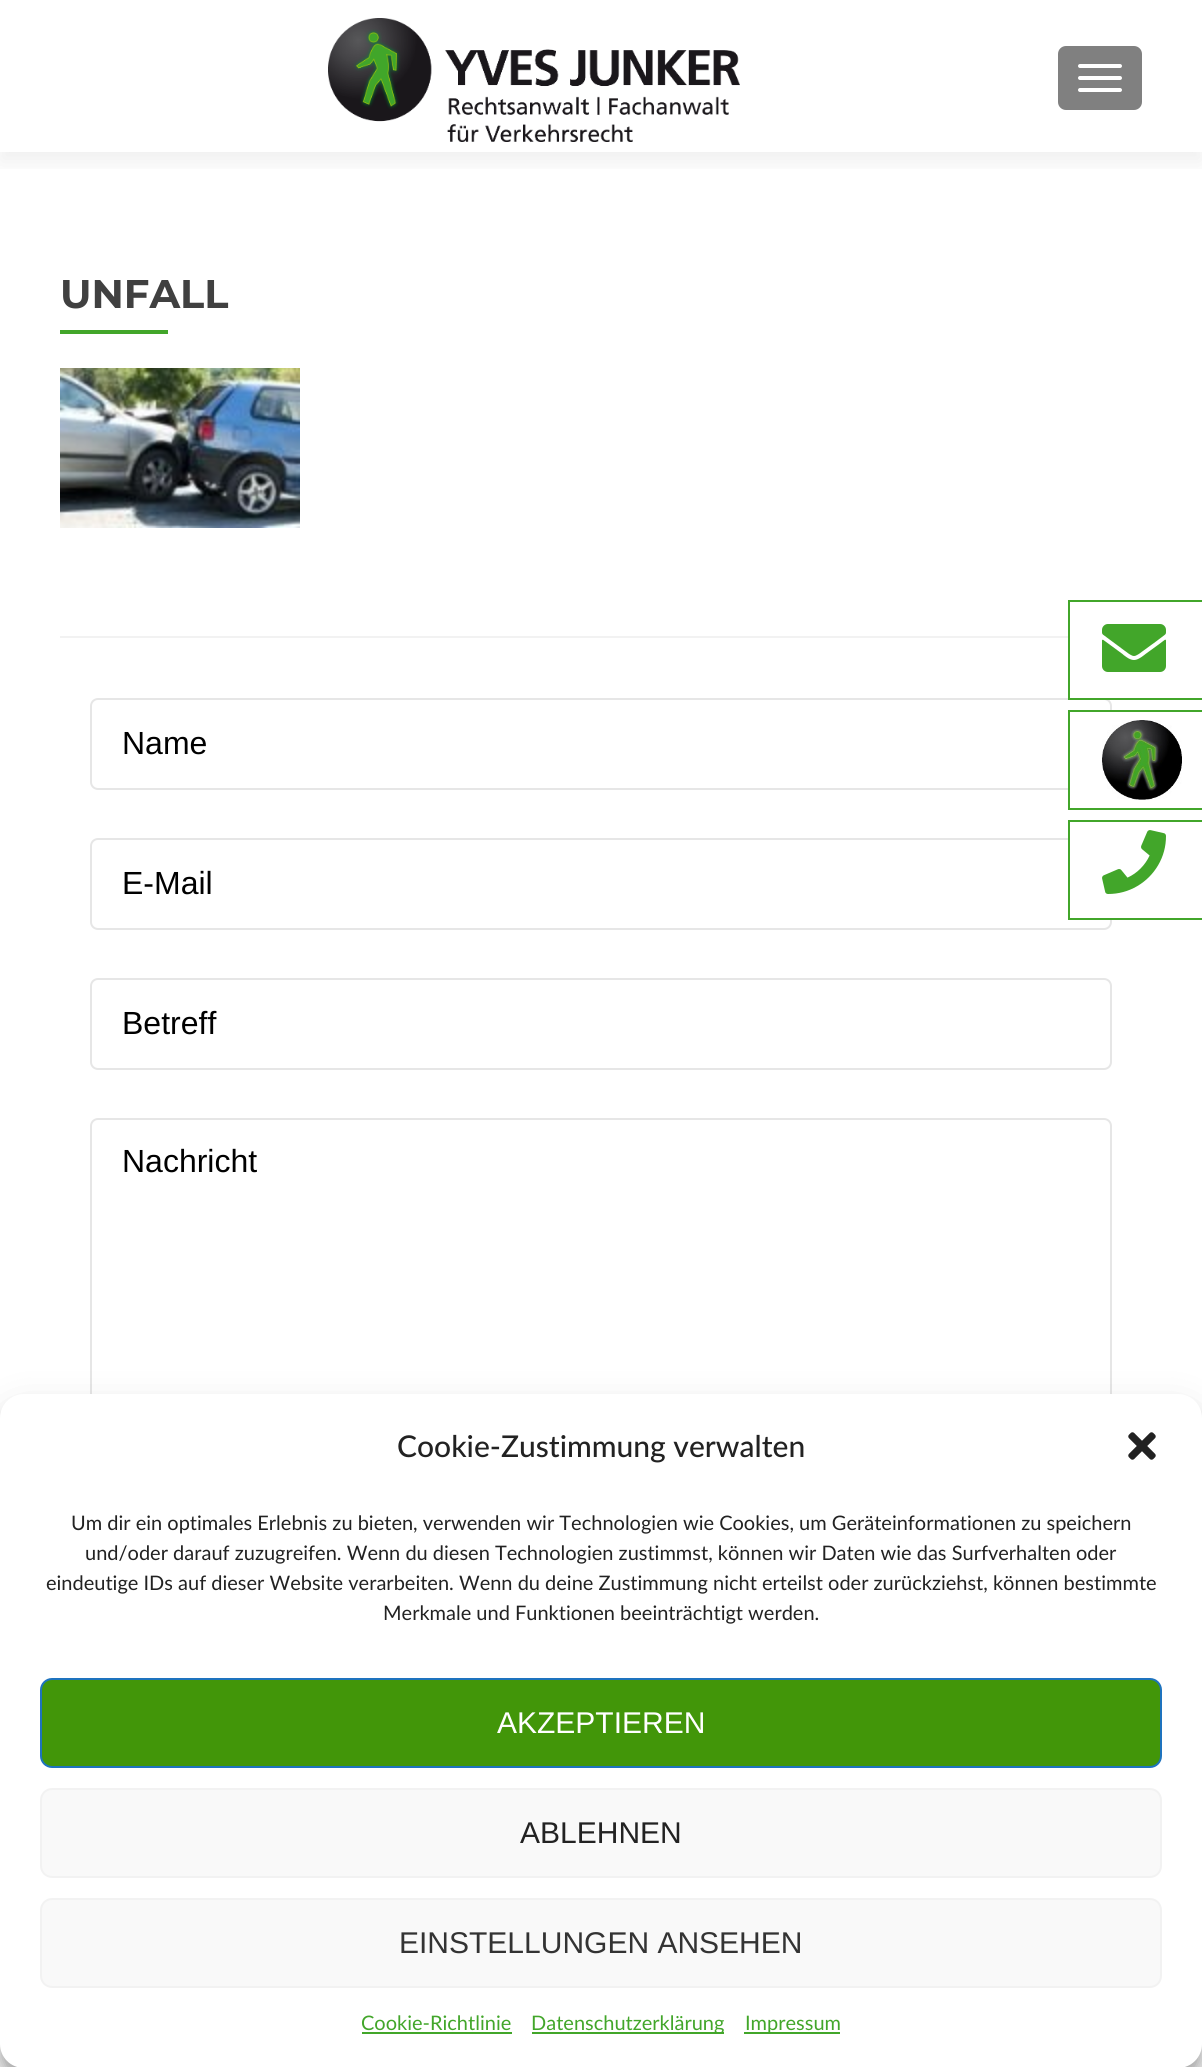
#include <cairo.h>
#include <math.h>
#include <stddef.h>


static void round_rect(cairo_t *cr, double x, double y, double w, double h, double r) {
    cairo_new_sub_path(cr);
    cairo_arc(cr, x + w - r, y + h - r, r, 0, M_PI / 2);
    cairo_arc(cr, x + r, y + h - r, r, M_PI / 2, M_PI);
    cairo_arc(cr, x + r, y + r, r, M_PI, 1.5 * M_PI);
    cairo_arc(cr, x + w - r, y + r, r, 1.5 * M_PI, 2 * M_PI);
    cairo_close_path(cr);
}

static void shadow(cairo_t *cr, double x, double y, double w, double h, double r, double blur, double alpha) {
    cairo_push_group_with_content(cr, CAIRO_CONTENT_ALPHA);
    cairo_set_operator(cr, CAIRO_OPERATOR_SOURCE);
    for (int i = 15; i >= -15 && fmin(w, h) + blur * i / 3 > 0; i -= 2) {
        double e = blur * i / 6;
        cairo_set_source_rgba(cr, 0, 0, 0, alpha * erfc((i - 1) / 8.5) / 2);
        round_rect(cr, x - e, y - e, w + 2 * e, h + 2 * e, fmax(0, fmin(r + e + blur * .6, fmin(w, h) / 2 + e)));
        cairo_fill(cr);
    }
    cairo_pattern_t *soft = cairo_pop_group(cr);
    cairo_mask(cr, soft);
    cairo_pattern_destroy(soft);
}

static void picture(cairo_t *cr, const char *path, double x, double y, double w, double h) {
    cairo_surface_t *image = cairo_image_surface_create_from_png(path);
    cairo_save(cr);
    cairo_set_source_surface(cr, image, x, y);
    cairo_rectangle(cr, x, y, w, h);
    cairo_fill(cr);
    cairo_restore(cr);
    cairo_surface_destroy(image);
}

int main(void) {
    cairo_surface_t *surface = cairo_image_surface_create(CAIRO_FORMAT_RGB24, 1202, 2067);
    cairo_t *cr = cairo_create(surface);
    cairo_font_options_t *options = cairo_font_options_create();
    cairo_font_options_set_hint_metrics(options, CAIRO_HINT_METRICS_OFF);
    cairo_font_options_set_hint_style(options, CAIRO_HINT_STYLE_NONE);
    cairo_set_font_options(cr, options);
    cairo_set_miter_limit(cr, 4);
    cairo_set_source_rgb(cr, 1, 1, 1);
    cairo_paint(cr);
    cairo_save(cr);
    cairo_rectangle(cr, 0, 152, 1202, 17);
    cairo_clip(cr);
    cairo_set_source_rgb(cr, 0.196, 0.196, 0.196);
    shadow(cr, 0, 10, 1202, 152, 0, 11, 0.08);
    cairo_restore(cr);
    picture(cr, "img1.png", 328, 18, 412, 124);
    cairo_set_source_rgb(cr, 0.502, 0.502, 0.502);
    round_rect(cr, 1058, 46, 84, 64, 8);
    cairo_fill(cr);
    cairo_set_source_rgb(cr, 1, 1, 1);
    round_rect(cr, 1078, 64, 44, 4, 2);
    cairo_fill(cr);
    round_rect(cr, 1078, 76, 44, 4, 2);
    cairo_fill(cr);
    round_rect(cr, 1078, 88, 44, 4, 2);
    cairo_fill(cr);
    round_rect(cr, 91, 699, 1020, 90, 7);
    cairo_set_source_rgb(cr, 0.902, 0.902, 0.902);
    cairo_stroke(cr);
    cairo_rectangle(cr, 1069, 601, 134, 98);
    cairo_set_source_rgb(cr, 0.259, 0.651, 0.165);
    cairo_stroke(cr);
    picture(cr, "img2.png", 1102, 624, 64, 48);
    cairo_set_source_rgb(cr, 1, 1, 1);
    cairo_rectangle(cr, 1070, 712, 42, 78);
    cairo_fill(cr);
    cairo_rectangle(cr, 1069, 711, 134, 98);
    cairo_set_source_rgb(cr, 0.259, 0.651, 0.165);
    cairo_stroke(cr);
    picture(cr, "img3.png", 1102, 720, 80, 80);
    round_rect(cr, 91, 839, 1020, 90, 7);
    cairo_set_source_rgb(cr, 0.902, 0.902, 0.902);
    cairo_stroke(cr);
    cairo_set_source_rgb(cr, 1, 1, 1);
    cairo_rectangle(cr, 1070, 838, 42, 80);
    cairo_fill(cr);
    cairo_rectangle(cr, 1069, 821, 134, 98);
    cairo_set_source_rgb(cr, 0.259, 0.651, 0.165);
    cairo_stroke(cr);
    picture(cr, "img4.png", 1102, 830, 64, 64);
    cairo_set_source_rgb(cr, 0.949, 0.949, 0.949);
    cairo_rectangle(cr, 60, 636, 1008, 2);
    cairo_fill(cr);
    cairo_select_font_face(cr, "Montserrat", CAIRO_FONT_SLANT_NORMAL, CAIRO_FONT_WEIGHT_BOLD);
    cairo_set_font_size(cr, 40);
    cairo_set_source_rgb(cr, 0.251, 0.251, 0.251);
    cairo_move_to(cr, 60, 308);
    cairo_show_text(cr, "UNFALL");
    cairo_set_source_rgb(cr, 0.259, 0.651, 0.165);
    cairo_rectangle(cr, 60, 330, 108, 4);
    cairo_fill(cr);
    picture(cr, "img5.png", 60, 368, 240, 160);
    cairo_select_font_face(cr, "Liberation Sans", CAIRO_FONT_SLANT_NORMAL, CAIRO_FONT_WEIGHT_NORMAL);
    cairo_set_font_size(cr, 32);
    cairo_set_source_rgb(cr, 0, 0, 0);
    cairo_move_to(cr, 122, 754);
    cairo_show_text(cr, "Name");
    cairo_move_to(cr, 122, 894);
    cairo_show_text(cr, "E-Mail");
    round_rect(cr, 91, 979, 1020, 90, 7);
    cairo_set_source_rgb(cr, 0.902, 0.902, 0.902);
    cairo_stroke(cr);
    cairo_set_source_rgb(cr, 0, 0, 0);
    cairo_move_to(cr, 122, 1034);
    cairo_show_text(cr, "Betreff");
    round_rect(cr, 91, 1119, 1020, 518, 7);
    cairo_set_source_rgb(cr, 0.902, 0.902, 0.902);
    cairo_stroke(cr);
    cairo_set_source_rgb(cr, 0, 0, 0);
    cairo_move_to(cr, 122, 1172);
    cairo_show_text(cr, "Nachricht");
    cairo_set_source_rgb(cr, 0, 0, 0);
    shadow(cr, 0, 1406, 1202, 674, 24, 6, 0.23);
    shadow(cr, 0, 1414, 1202, 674, 24, 20, 0.19);
    cairo_set_source_rgb(cr, 1, 1, 1);
    round_rect(cr, 0, 1394, 1202, 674, 24);
    cairo_fill(cr);
    cairo_select_font_face(cr, "Lato Medium", CAIRO_FONT_SLANT_NORMAL, CAIRO_FONT_WEIGHT_NORMAL);
    cairo_set_font_size(cr, 30);
    cairo_set_source_rgb(cr, 0.133, 0.133, 0.133);
    cairo_move_to(cr, 397, 1457);
    cairo_show_text(cr, "Cookie-Zustimmung verwalten");
    picture(cr, "img6.png", 1128, 1432, 28, 28);
    cairo_select_font_face(cr, "Lato", CAIRO_FONT_SLANT_NORMAL, CAIRO_FONT_WEIGHT_NORMAL);
    cairo_set_font_size(cr, 20);
    cairo_move_to(cr, 71, 1530);
    cairo_show_text(cr, "Um dir ein optimales Erlebnis zu bieten, verwenden wir Technologien wie Cookies, um Geräteinformationen zu speichern");
    cairo_move_to(cr, 85, 1560);
    cairo_show_text(cr, "und/oder darauf zuzugreifen. Wenn du diesen Technologien zustimmst, können wir Daten wie das Surfverhalten oder");
    cairo_move_to(cr, 46, 1590);
    cairo_show_text(cr, "eindeutige IDs auf dieser Website verarbeiten. Wenn du deine Zustimmung nicht erteilst oder zurückziehst, können bestimmte");
    cairo_move_to(cr, 383, 1620);
    cairo_show_text(cr, "Merkmale und Funktionen beeinträchtigt werden.");
    cairo_set_source_rgb(cr, 0.259, 0.588, 0.039);
    round_rect(cr, 41, 1679, 1120, 88, 11);
    cairo_fill_preserve(cr);
    cairo_set_source_rgb(cr, 0.118, 0.451, 0.745);
    cairo_stroke(cr);
    cairo_select_font_face(cr, "Liberation Sans", CAIRO_FONT_SLANT_NORMAL, CAIRO_FONT_WEIGHT_NORMAL);
    cairo_set_font_size(cr, 30);
    cairo_set_source_rgb(cr, 1, 1, 1);
    cairo_move_to(cr, 497, 1733);
    cairo_show_text(cr, "AKZEPTIEREN");
    cairo_set_source_rgb(cr, 0.976, 0.976, 0.976);
    round_rect(cr, 41, 1789, 1120, 88, 11);
    cairo_fill_preserve(cr);
    cairo_set_source_rgb(cr, 0.949, 0.949, 0.949);
    cairo_stroke(cr);
    cairo_set_source_rgb(cr, 0.133, 0.133, 0.133);
    cairo_move_to(cr, 520, 1843);
    cairo_show_text(cr, "ABLEHNEN");
    cairo_set_source_rgb(cr, 0.976, 0.976, 0.976);
    round_rect(cr, 41, 1899, 1120, 88, 11);
    cairo_fill_preserve(cr);
    cairo_set_source_rgb(cr, 0.949, 0.949, 0.949);
    cairo_stroke(cr);
    cairo_set_source_rgb(cr, 0.2, 0.2, 0.2);
    cairo_move_to(cr, 399, 1953);
    cairo_show_text(cr, "EINSTELLUNGEN ANSEHEN");
    cairo_select_font_face(cr, "Lato", CAIRO_FONT_SLANT_NORMAL, CAIRO_FONT_WEIGHT_NORMAL);
    cairo_set_font_size(cr, 20);
    cairo_set_source_rgb(cr, 0.259, 0.651, 0.165);
    cairo_move_to(cr, 361, 2030);
    cairo_show_text(cr, "Cookie-Richtlinie");
    cairo_rectangle(cr, 362, 2032, 150, 2);
    cairo_fill(cr);
    cairo_rectangle(cr, 532, 2032, 192, 2);
    cairo_fill(cr);
    cairo_move_to(cr, 531, 2030);
    cairo_show_text(cr, "Datenschutzerklärung");
    cairo_rectangle(cr, 744, 2032, 96, 2);
    cairo_fill(cr);
    cairo_move_to(cr, 745, 2030);
    cairo_show_text(cr, "Impressum");
    cairo_surface_write_to_png(surface, "page.png");
    cairo_font_options_destroy(options);
    cairo_destroy(cr);
    cairo_surface_destroy(surface);
    return 0;
}
